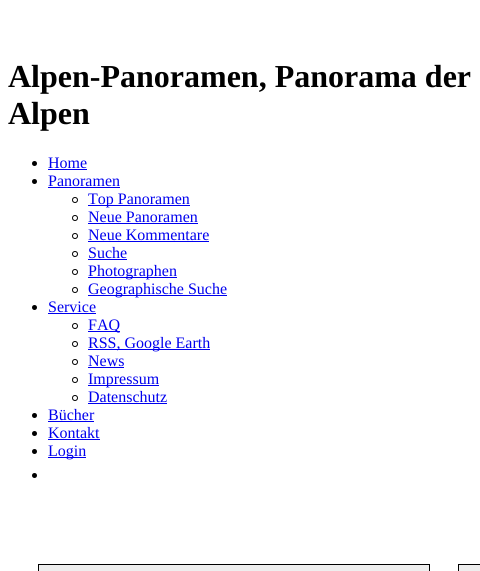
#include <cairo.h>
#include <math.h>
#include <stddef.h>


int main(void) {
    cairo_surface_t *surface = cairo_image_surface_create(CAIRO_FORMAT_RGB24, 480, 571);
    cairo_t *cr = cairo_create(surface);
    cairo_font_options_t *options = cairo_font_options_create();
    cairo_font_options_set_hint_metrics(options, CAIRO_HINT_METRICS_OFF);
    cairo_font_options_set_hint_style(options, CAIRO_HINT_STYLE_NONE);
    cairo_set_font_options(cr, options);
    cairo_set_miter_limit(cr, 4);
    cairo_set_source_rgb(cr, 1, 1, 1);
    cairo_paint(cr);
    cairo_select_font_face(cr, "Liberation Serif", CAIRO_FONT_SLANT_NORMAL, CAIRO_FONT_WEIGHT_BOLD);
    cairo_set_font_size(cr, 32);
    cairo_set_source_rgb(cr, 0, 0, 0);
    cairo_move_to(cr, 8, 87);
    cairo_show_text(cr, "Alpen-Panoramen, Panorama der");
    cairo_move_to(cr, 8, 124);
    cairo_show_text(cr, "Alpen");
    cairo_new_path(cr);
    cairo_arc(cr, 34.5, 163.5, 2.5, 0, 2 * M_PI);
    cairo_fill(cr);
    cairo_select_font_face(cr, "Liberation Serif", CAIRO_FONT_SLANT_NORMAL, CAIRO_FONT_WEIGHT_NORMAL);
    cairo_set_font_size(cr, 16);
    cairo_set_source_rgb(cr, 0, 0, 0.933);
    cairo_move_to(cr, 48, 168);
    cairo_show_text(cr, "Home");
    cairo_rectangle(cr, 48, 169, 39, 1);
    cairo_fill(cr);
    cairo_set_source_rgb(cr, 0, 0, 0);
    cairo_arc(cr, 34.5, 181.5, 2.5, 0, 2 * M_PI);
    cairo_fill(cr);
    cairo_set_source_rgb(cr, 0, 0, 0.933);
    cairo_move_to(cr, 48, 186);
    cairo_show_text(cr, "Panoramen");
    cairo_rectangle(cr, 48, 187, 72, 1);
    cairo_fill(cr);
    cairo_arc(cr, 75, 200, 2.5, 0, 2 * M_PI);
    cairo_set_source_rgb(cr, 0, 0, 0);
    cairo_set_line_width(cr, 1);
    cairo_stroke(cr);
    cairo_set_source_rgb(cr, 0, 0, 0.933);
    cairo_rectangle(cr, 88, 205, 102, 1);
    cairo_fill(cr);
    cairo_move_to(cr, 88, 204);
    cairo_show_text(cr, "Top Panoramen");
    cairo_new_path(cr);
    cairo_arc(cr, 75, 218, 2.5, 0, 2 * M_PI);
    cairo_set_source_rgb(cr, 0, 0, 0);
    cairo_stroke(cr);
    cairo_set_source_rgb(cr, 0, 0, 0.933);
    cairo_move_to(cr, 88, 222);
    cairo_show_text(cr, "Neue Panoramen");
    cairo_rectangle(cr, 88, 223, 110, 1);
    cairo_fill(cr);
    cairo_arc(cr, 75, 236, 2.5, 0, 2 * M_PI);
    cairo_set_source_rgb(cr, 0, 0, 0);
    cairo_stroke(cr);
    cairo_set_source_rgb(cr, 0, 0, 0.933);
    cairo_move_to(cr, 88, 240);
    cairo_show_text(cr, "Neue Kommentare");
    cairo_rectangle(cr, 88, 241, 121, 1);
    cairo_fill(cr);
    cairo_arc(cr, 75, 254, 2.5, 0, 2 * M_PI);
    cairo_set_source_rgb(cr, 0, 0, 0);
    cairo_stroke(cr);
    cairo_set_source_rgb(cr, 0, 0, 0.933);
    cairo_move_to(cr, 88, 258);
    cairo_show_text(cr, "Suche");
    cairo_rectangle(cr, 88, 259, 39, 1);
    cairo_fill(cr);
    cairo_arc(cr, 75, 272, 2.5, 0, 2 * M_PI);
    cairo_set_source_rgb(cr, 0, 0, 0);
    cairo_stroke(cr);
    cairo_set_source_rgb(cr, 0, 0, 0.933);
    cairo_rectangle(cr, 88, 277, 89, 1);
    cairo_fill(cr);
    cairo_move_to(cr, 88, 276);
    cairo_show_text(cr, "Photographen");
    cairo_new_path(cr);
    cairo_arc(cr, 75, 290, 2.5, 0, 2 * M_PI);
    cairo_set_source_rgb(cr, 0, 0, 0);
    cairo_stroke(cr);
    cairo_set_source_rgb(cr, 0, 0, 0.933);
    cairo_rectangle(cr, 88, 295, 139, 1);
    cairo_fill(cr);
    cairo_move_to(cr, 88, 294);
    cairo_show_text(cr, "Geographische Suche");
    cairo_set_source_rgb(cr, 0, 0, 0);
    cairo_new_path(cr);
    cairo_arc(cr, 34.5, 307.5, 2.5, 0, 2 * M_PI);
    cairo_fill(cr);
    cairo_set_source_rgb(cr, 0, 0, 0.933);
    cairo_move_to(cr, 48, 312);
    cairo_show_text(cr, "Service");
    cairo_rectangle(cr, 48, 313, 48, 1);
    cairo_fill(cr);
    cairo_arc(cr, 75, 326, 2.5, 0, 2 * M_PI);
    cairo_set_source_rgb(cr, 0, 0, 0);
    cairo_stroke(cr);
    cairo_set_source_rgb(cr, 0, 0, 0.933);
    cairo_rectangle(cr, 88, 331, 32, 1);
    cairo_fill(cr);
    cairo_move_to(cr, 88, 330);
    cairo_show_text(cr, "FAQ");
    cairo_new_path(cr);
    cairo_arc(cr, 75, 344, 2.5, 0, 2 * M_PI);
    cairo_set_source_rgb(cr, 0, 0, 0);
    cairo_stroke(cr);
    cairo_set_source_rgb(cr, 0, 0, 0.933);
    cairo_rectangle(cr, 88, 349, 122, 1);
    cairo_fill(cr);
    cairo_move_to(cr, 88, 348);
    cairo_show_text(cr, "RSS, Google Earth");
    cairo_new_path(cr);
    cairo_arc(cr, 75, 362, 2.5, 0, 2 * M_PI);
    cairo_set_source_rgb(cr, 0, 0, 0);
    cairo_stroke(cr);
    cairo_set_source_rgb(cr, 0, 0, 0.933);
    cairo_move_to(cr, 88, 366);
    cairo_show_text(cr, "News");
    cairo_rectangle(cr, 88, 367, 36, 1);
    cairo_fill(cr);
    cairo_arc(cr, 75, 380, 2.5, 0, 2 * M_PI);
    cairo_set_source_rgb(cr, 0, 0, 0);
    cairo_stroke(cr);
    cairo_set_source_rgb(cr, 0, 0, 0.933);
    cairo_rectangle(cr, 88, 385, 71, 1);
    cairo_fill(cr);
    cairo_move_to(cr, 88, 384);
    cairo_show_text(cr, "Impressum");
    cairo_new_path(cr);
    cairo_arc(cr, 75, 398, 2.5, 0, 2 * M_PI);
    cairo_set_source_rgb(cr, 0, 0, 0);
    cairo_stroke(cr);
    cairo_set_source_rgb(cr, 0, 0, 0.933);
    cairo_move_to(cr, 88, 402);
    cairo_show_text(cr, "Datenschutz");
    cairo_rectangle(cr, 88, 403, 79, 1);
    cairo_fill(cr);
    cairo_set_source_rgb(cr, 0, 0, 0);
    cairo_arc(cr, 34.5, 415.5, 2.5, 0, 2 * M_PI);
    cairo_fill(cr);
    cairo_set_source_rgb(cr, 0, 0, 0.933);
    cairo_move_to(cr, 48, 420);
    cairo_show_text(cr, "Bücher");
    cairo_rectangle(cr, 48, 421, 46, 1);
    cairo_fill(cr);
    cairo_set_source_rgb(cr, 0, 0, 0);
    cairo_arc(cr, 34.5, 433.5, 2.5, 0, 2 * M_PI);
    cairo_fill(cr);
    cairo_set_source_rgb(cr, 0, 0, 0.933);
    cairo_move_to(cr, 48, 438);
    cairo_show_text(cr, "Kontakt");
    cairo_rectangle(cr, 48, 439, 52, 1);
    cairo_fill(cr);
    cairo_set_source_rgb(cr, 0, 0, 0);
    cairo_arc(cr, 34.5, 451.5, 2.5, 0, 2 * M_PI);
    cairo_fill(cr);
    cairo_set_source_rgb(cr, 0, 0, 0.933);
    cairo_rectangle(cr, 48, 457, 38, 1);
    cairo_fill(cr);
    cairo_move_to(cr, 48, 456);
    cairo_show_text(cr, "Login");
    cairo_set_source_rgb(cr, 0, 0, 0);
    cairo_new_path(cr);
    cairo_arc(cr, 34.5, 475.5, 2.5, 0, 2 * M_PI);
    cairo_fill(cr);
    cairo_set_source_rgb(cr, 0.933, 0.933, 0.933);
    cairo_rectangle(cr, 38.5, 564.5, 391, 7);
    cairo_fill_preserve(cr);
    cairo_set_source_rgb(cr, 0, 0, 0);
    cairo_stroke(cr);
    cairo_set_source_rgb(cr, 0.933, 0.933, 0.933);
    cairo_rectangle(cr, 458.5, 564.5, 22, 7);
    cairo_fill_preserve(cr);
    cairo_set_source_rgb(cr, 0, 0, 0);
    cairo_stroke(cr);
    cairo_surface_write_to_png(surface, "page.png");
    cairo_font_options_destroy(options);
    cairo_destroy(cr);
    cairo_surface_destroy(surface);
    return 0;
}
